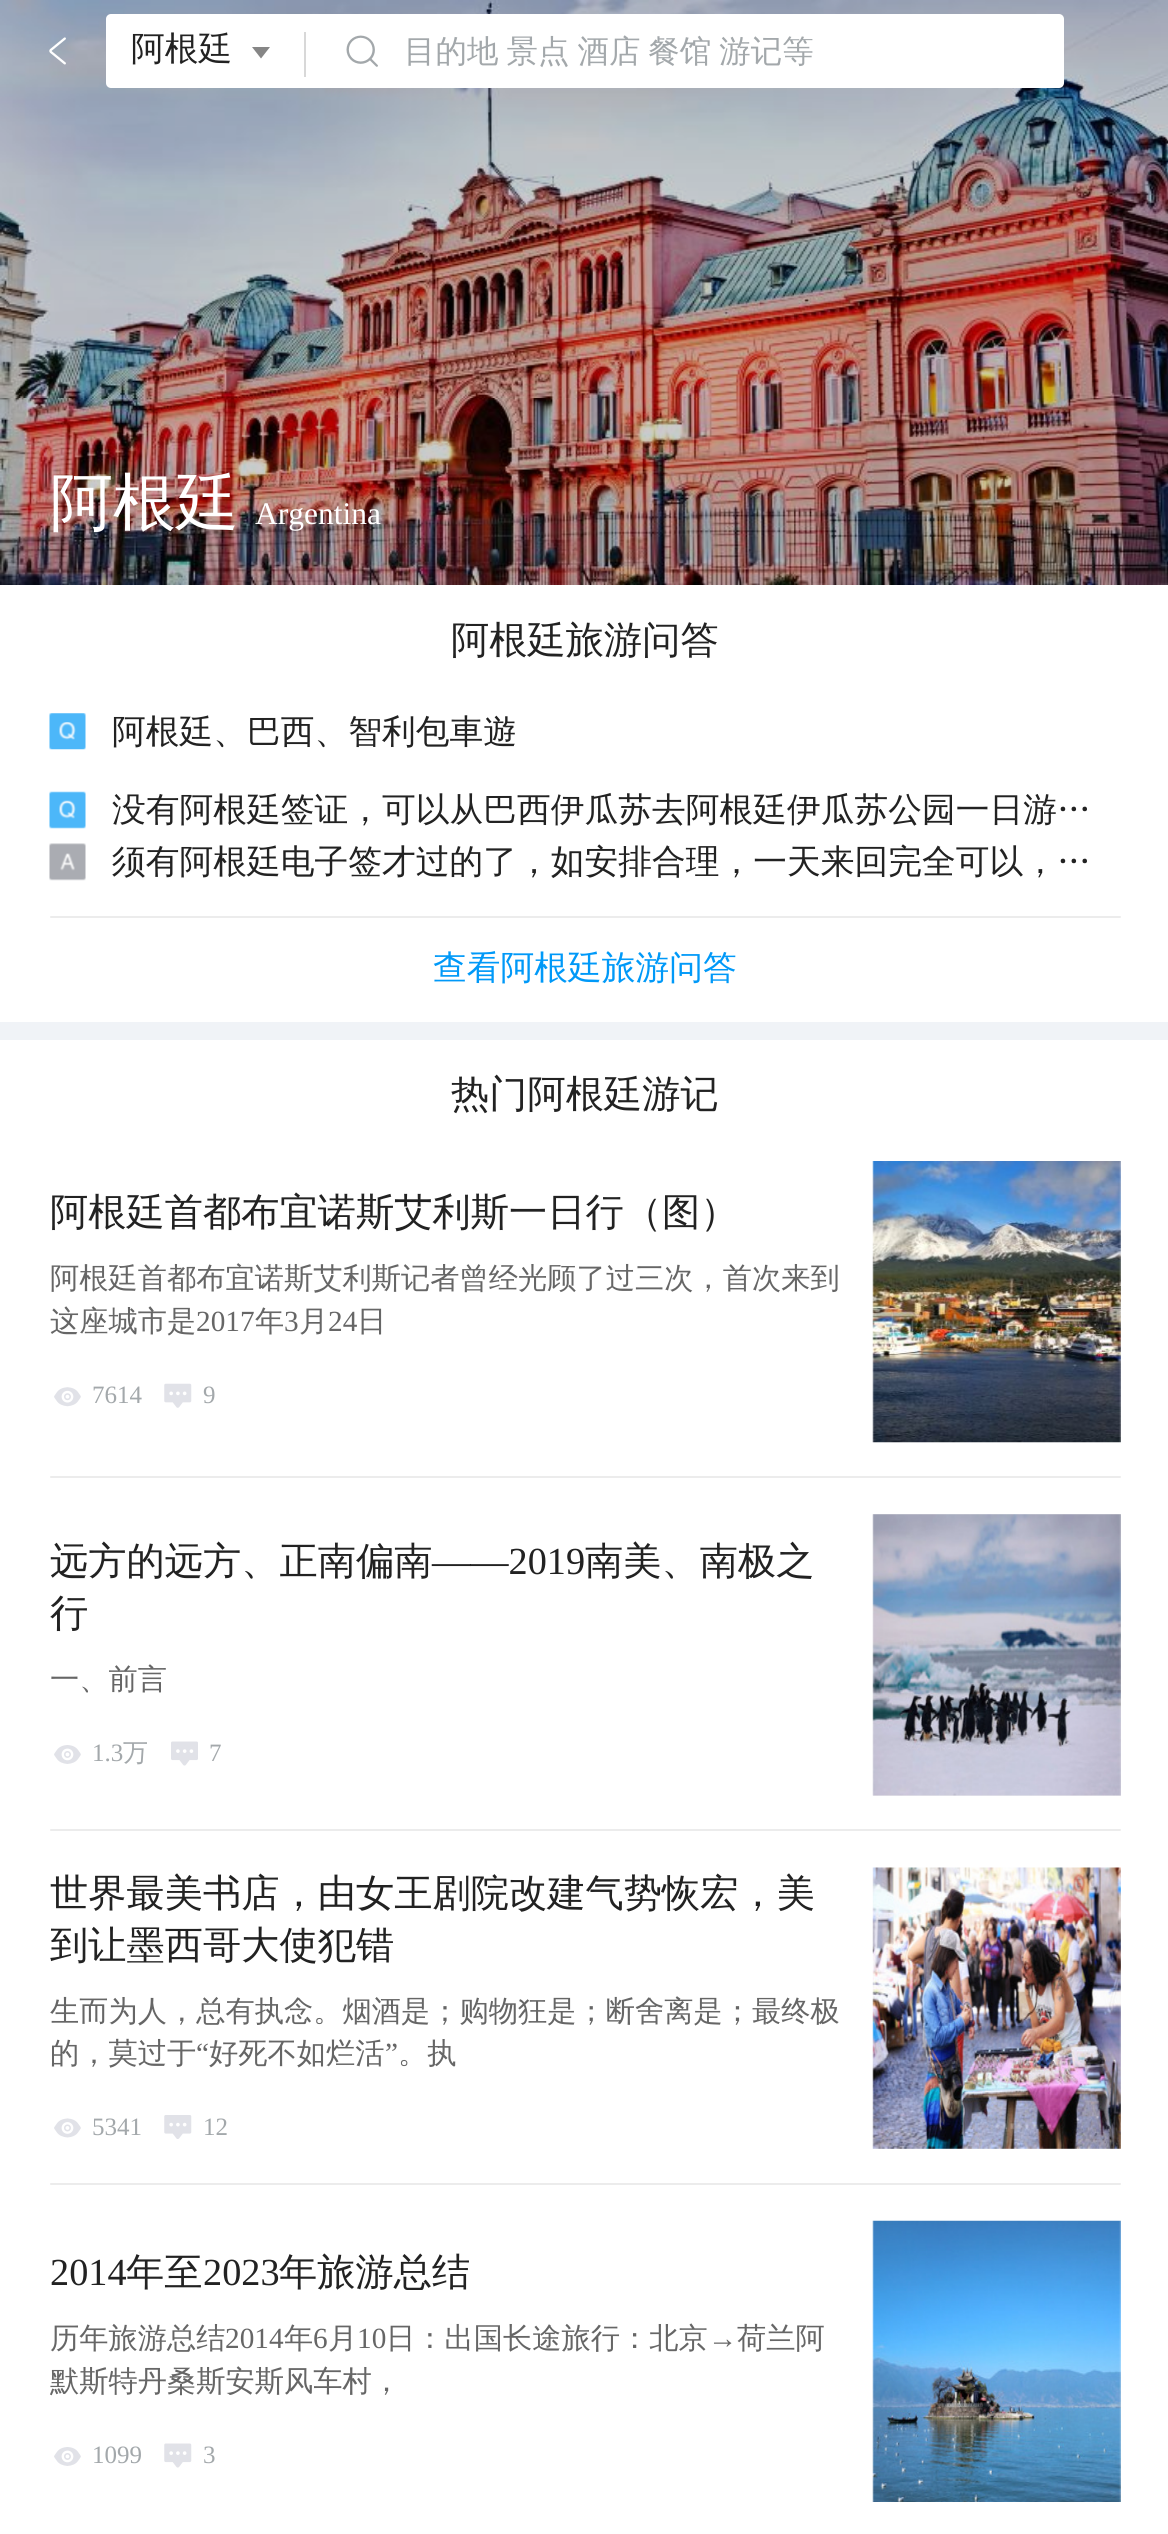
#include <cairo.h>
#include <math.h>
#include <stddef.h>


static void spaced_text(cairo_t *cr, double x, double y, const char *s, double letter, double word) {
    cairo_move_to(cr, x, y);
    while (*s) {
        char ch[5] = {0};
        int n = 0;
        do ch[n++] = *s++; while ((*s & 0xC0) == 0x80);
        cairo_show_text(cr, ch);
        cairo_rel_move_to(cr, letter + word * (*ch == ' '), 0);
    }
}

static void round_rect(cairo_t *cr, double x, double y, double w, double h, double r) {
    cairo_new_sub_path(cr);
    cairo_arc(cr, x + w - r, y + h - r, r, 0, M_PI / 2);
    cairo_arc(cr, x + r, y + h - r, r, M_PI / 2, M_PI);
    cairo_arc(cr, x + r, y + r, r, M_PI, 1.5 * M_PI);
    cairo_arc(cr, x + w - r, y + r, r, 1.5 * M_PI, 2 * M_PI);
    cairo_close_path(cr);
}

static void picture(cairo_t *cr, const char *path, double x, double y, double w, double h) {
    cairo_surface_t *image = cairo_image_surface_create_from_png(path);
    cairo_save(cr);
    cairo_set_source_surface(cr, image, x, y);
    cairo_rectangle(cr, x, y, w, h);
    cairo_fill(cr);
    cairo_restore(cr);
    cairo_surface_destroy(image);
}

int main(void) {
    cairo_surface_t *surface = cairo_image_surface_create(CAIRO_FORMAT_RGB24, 1168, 2534);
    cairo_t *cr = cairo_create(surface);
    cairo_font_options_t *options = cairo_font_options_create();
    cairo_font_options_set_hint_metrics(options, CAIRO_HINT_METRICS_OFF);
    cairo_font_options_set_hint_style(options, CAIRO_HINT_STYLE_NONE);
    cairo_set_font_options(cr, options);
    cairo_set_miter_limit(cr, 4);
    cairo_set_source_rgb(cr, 1, 1, 1);
    cairo_paint(cr);
    picture(cr, "img1.png", 0, 0, 1168, 585);
    picture(cr, "img2.png", 49, 37, 17, 28);
    cairo_set_source_rgb(cr, 1, 1, 1);
    round_rect(cr, 106, 14, 958, 74, 5);
    cairo_fill(cr);
    cairo_select_font_face(cr, "WenQuanYi Zen Hei Medium", CAIRO_FONT_SLANT_NORMAL, CAIRO_FONT_WEIGHT_NORMAL);
    cairo_set_font_size(cr, 33.75);
    cairo_set_source_rgb(cr, 0.133, 0.133, 0.133);
    cairo_move_to(cr, 131, 60);
    cairo_show_text(cr, "阿根廷");
    cairo_set_source_rgb(cr, 0.525, 0.525, 0.525);
    cairo_new_path(cr);
    cairo_move_to(cr, 252, 47);
    cairo_line_to(cr, 270, 47);
    cairo_line_to(cr, 261, 58.5);
    cairo_close_path(cr);
    cairo_fill(cr);
    cairo_set_source_rgb(cr, 0.847, 0.847, 0.847);
    cairo_rectangle(cr, 304, 32, 2, 45);
    cairo_fill(cr);
    picture(cr, "img3.png", 346, 35, 32, 32);
    cairo_set_font_size(cr, 31.5);
    cairo_set_source_rgb(cr, 0.639, 0.659, 0.671);
    spaced_text(cr, 404, 62, "目的地 景点 酒店 餐馆 游记等", 0, -1.5);
    cairo_set_font_size(cr, 63);
    cairo_set_source_rgb(cr, 1, 1, 1);
    cairo_move_to(cr, 50, 524);
    cairo_show_text(cr, "阿根廷");
    cairo_select_font_face(cr, "Liberation Serif", CAIRO_FONT_SLANT_NORMAL, CAIRO_FONT_WEIGHT_NORMAL);
    cairo_set_font_size(cr, 31.5);
    cairo_move_to(cr, 255, 524);
    cairo_show_text(cr, "Argentina");
    cairo_select_font_face(cr, "WenQuanYi Zen Hei Medium", CAIRO_FONT_SLANT_NORMAL, CAIRO_FONT_WEIGHT_NORMAL);
    cairo_set_font_size(cr, 38.25);
    cairo_set_source_rgb(cr, 0.133, 0.133, 0.133);
    cairo_move_to(cr, 451, 653);
    cairo_show_text(cr, "阿根廷旅游问答");
    picture(cr, "img4.png", 49, 713, 37, 37);
    cairo_set_font_size(cr, 33.75);
    cairo_move_to(cr, 112, 743);
    cairo_show_text(cr, "阿根廷、巴西、智利包車遊");
    picture(cr, "img5.png", 49, 791, 37, 38);
    cairo_move_to(cr, 112, 821);
    cairo_show_text(cr, "没有阿根廷签证，可以从巴西伊瓜苏去阿根廷伊瓜苏公园一日游…");
    picture(cr, "img6.png", 49, 843, 37, 38);
    cairo_move_to(cr, 112, 873);
    cairo_show_text(cr, "须有阿根廷电子签才过的了，如安排合理，一天来回完全可以，…");
    cairo_set_source_rgb(cr, 0.925, 0.925, 0.925);
    round_rect(cr, 50, 916, 1071, 2, 1);
    cairo_fill(cr);
    cairo_set_source_rgb(cr, 0, 0.6, 0.969);
    cairo_move_to(cr, 433, 979);
    cairo_show_text(cr, "查看阿根廷旅游问答");
    cairo_set_source_rgb(cr, 0.941, 0.953, 0.965);
    cairo_rectangle(cr, 0, 1022, 1168, 18);
    cairo_fill(cr);
    cairo_set_font_size(cr, 38.25);
    cairo_set_source_rgb(cr, 0.133, 0.133, 0.133);
    cairo_move_to(cr, 451, 1107);
    cairo_show_text(cr, "热门阿根廷游记");
    cairo_move_to(cr, 50, 1225);
    cairo_show_text(cr, "阿根廷首都布宜诺斯艾利斯一日行（图）");
    cairo_set_font_size(cr, 29.25);
    cairo_set_source_rgb(cr, 0.4, 0.4, 0.4);
    cairo_move_to(cr, 50, 1288);
    cairo_show_text(cr, "阿根廷首都布宜诺斯艾利斯记者曾经光顾了过三次，首次来到");
    cairo_move_to(cr, 50, 1331);
    cairo_show_text(cr, "这座城市是");
    cairo_select_font_face(cr, "Liberation Serif", CAIRO_FONT_SLANT_NORMAL, CAIRO_FONT_WEIGHT_NORMAL);
    cairo_move_to(cr, 196, 1331);
    cairo_show_text(cr, "2017");
    cairo_select_font_face(cr, "WenQuanYi Zen Hei Medium", CAIRO_FONT_SLANT_NORMAL, CAIRO_FONT_WEIGHT_NORMAL);
    cairo_move_to(cr, 255, 1331);
    cairo_show_text(cr, "年");
    cairo_select_font_face(cr, "Liberation Serif", CAIRO_FONT_SLANT_NORMAL, CAIRO_FONT_WEIGHT_NORMAL);
    cairo_move_to(cr, 284, 1331);
    cairo_show_text(cr, "3");
    cairo_select_font_face(cr, "WenQuanYi Zen Hei Medium", CAIRO_FONT_SLANT_NORMAL, CAIRO_FONT_WEIGHT_NORMAL);
    cairo_move_to(cr, 299, 1331);
    cairo_show_text(cr, "月");
    cairo_select_font_face(cr, "Liberation Serif", CAIRO_FONT_SLANT_NORMAL, CAIRO_FONT_WEIGHT_NORMAL);
    cairo_move_to(cr, 328, 1331);
    cairo_show_text(cr, "24");
    cairo_select_font_face(cr, "WenQuanYi Zen Hei Medium", CAIRO_FONT_SLANT_NORMAL, CAIRO_FONT_WEIGHT_NORMAL);
    cairo_move_to(cr, 357, 1331);
    cairo_show_text(cr, "日");
    picture(cr, "img7.png", 54, 1387, 27, 20);
    cairo_select_font_face(cr, "Liberation Serif", CAIRO_FONT_SLANT_NORMAL, CAIRO_FONT_WEIGHT_NORMAL);
    cairo_set_font_size(cr, 25);
    cairo_set_source_rgb(cr, 0.639, 0.659, 0.671);
    cairo_move_to(cr, 92, 1403);
    cairo_show_text(cr, "7614");
    picture(cr, "img8.png", 164, 1383, 28, 25);
    cairo_move_to(cr, 203, 1403);
    cairo_show_text(cr, "9");
    picture(cr, "img9.png", 872, 1161, 249, 282);
    cairo_set_source_rgb(cr, 0.925, 0.925, 0.925);
    round_rect(cr, 50, 1476, 1071, 2, 1);
    cairo_fill(cr);
    cairo_select_font_face(cr, "WenQuanYi Zen Hei Medium", CAIRO_FONT_SLANT_NORMAL, CAIRO_FONT_WEIGHT_NORMAL);
    cairo_set_font_size(cr, 38.25);
    cairo_set_source_rgb(cr, 0.133, 0.133, 0.133);
    cairo_move_to(cr, 50, 1574);
    cairo_show_text(cr, "远方的远方、正南偏南");
    cairo_select_font_face(cr, "Liberation Serif", CAIRO_FONT_SLANT_NORMAL, CAIRO_FONT_WEIGHT_NORMAL);
    cairo_move_to(cr, 432, 1574);
    cairo_show_text(cr, "——2019");
    cairo_select_font_face(cr, "WenQuanYi Zen Hei Medium", CAIRO_FONT_SLANT_NORMAL, CAIRO_FONT_WEIGHT_NORMAL);
    cairo_move_to(cr, 585, 1574);
    cairo_show_text(cr, "南美、南极之");
    cairo_move_to(cr, 50, 1626);
    cairo_show_text(cr, "行");
    cairo_set_font_size(cr, 29.25);
    cairo_set_source_rgb(cr, 0.4, 0.4, 0.4);
    cairo_move_to(cr, 50, 1689);
    cairo_show_text(cr, "一、前言");
    picture(cr, "img10.png", 54, 1745, 27, 19);
    cairo_select_font_face(cr, "Liberation Serif", CAIRO_FONT_SLANT_NORMAL, CAIRO_FONT_WEIGHT_NORMAL);
    cairo_set_font_size(cr, 25);
    cairo_set_source_rgb(cr, 0.639, 0.659, 0.671);
    cairo_move_to(cr, 92, 1761);
    cairo_show_text(cr, "1.3");
    cairo_select_font_face(cr, "WenQuanYi Zen Hei Medium", CAIRO_FONT_SLANT_NORMAL, CAIRO_FONT_WEIGHT_NORMAL);
    cairo_move_to(cr, 123, 1761);
    cairo_show_text(cr, "万");
    picture(cr, "img11.png", 171, 1741, 27, 25);
    cairo_select_font_face(cr, "Liberation Serif", CAIRO_FONT_SLANT_NORMAL, CAIRO_FONT_WEIGHT_NORMAL);
    cairo_move_to(cr, 209, 1761);
    cairo_show_text(cr, "7");
    cairo_set_source_rgb(cr, 0.933, 0.933, 0.933);
    cairo_rectangle(cr, 873, 1514, 248, 282);
    cairo_fill(cr);
    picture(cr, "img12.png", 872, 1514, 249, 282);
    cairo_set_source_rgb(cr, 0.925, 0.925, 0.925);
    round_rect(cr, 50, 1829, 1071, 2, 1);
    cairo_fill(cr);
    cairo_select_font_face(cr, "WenQuanYi Zen Hei Medium", CAIRO_FONT_SLANT_NORMAL, CAIRO_FONT_WEIGHT_NORMAL);
    cairo_set_font_size(cr, 38.25);
    cairo_set_source_rgb(cr, 0.133, 0.133, 0.133);
    cairo_move_to(cr, 50, 1906);
    cairo_show_text(cr, "世界最美书店，由女王剧院改建气势恢宏，美");
    cairo_move_to(cr, 50, 1958);
    cairo_show_text(cr, "到让墨西哥大使犯错");
    cairo_set_font_size(cr, 29.25);
    cairo_set_source_rgb(cr, 0.4, 0.4, 0.4);
    cairo_move_to(cr, 50, 2021);
    cairo_show_text(cr, "生而为人，总有执念。烟酒是；购物狂是；断舍离是；最终极");
    cairo_move_to(cr, 50, 2063);
    cairo_show_text(cr, "的，莫过于");
    cairo_select_font_face(cr, "Liberation Serif", CAIRO_FONT_SLANT_NORMAL, CAIRO_FONT_WEIGHT_NORMAL);
    cairo_move_to(cr, 196, 2063);
    cairo_show_text(cr, "“");
    cairo_select_font_face(cr, "WenQuanYi Zen Hei Medium", CAIRO_FONT_SLANT_NORMAL, CAIRO_FONT_WEIGHT_NORMAL);
    cairo_move_to(cr, 209, 2063);
    cairo_show_text(cr, "好死不如烂活");
    cairo_select_font_face(cr, "Liberation Serif", CAIRO_FONT_SLANT_NORMAL, CAIRO_FONT_WEIGHT_NORMAL);
    cairo_move_to(cr, 385, 2063);
    cairo_show_text(cr, "”");
    cairo_select_font_face(cr, "WenQuanYi Zen Hei Medium", CAIRO_FONT_SLANT_NORMAL, CAIRO_FONT_WEIGHT_NORMAL);
    cairo_move_to(cr, 398, 2063);
    cairo_show_text(cr, "。执");
    picture(cr, "img13.png", 54, 2118, 27, 20);
    cairo_select_font_face(cr, "Liberation Serif", CAIRO_FONT_SLANT_NORMAL, CAIRO_FONT_WEIGHT_NORMAL);
    cairo_set_font_size(cr, 25);
    cairo_set_source_rgb(cr, 0.639, 0.659, 0.671);
    cairo_move_to(cr, 92, 2135);
    cairo_show_text(cr, "5341");
    picture(cr, "img14.png", 164, 2115, 28, 24);
    cairo_move_to(cr, 203, 2135);
    cairo_show_text(cr, "12");
    cairo_set_source_rgb(cr, 0.933, 0.933, 0.933);
    cairo_rectangle(cr, 873, 1868, 248, 281);
    cairo_fill(cr);
    picture(cr, "img15.png", 872, 1867, 249, 282);
    cairo_set_source_rgb(cr, 0.925, 0.925, 0.925);
    round_rect(cr, 50, 2183, 1071, 2, 1);
    cairo_fill(cr);
    cairo_set_font_size(cr, 38.25);
    cairo_set_source_rgb(cr, 0.133, 0.133, 0.133);
    cairo_move_to(cr, 50, 2285);
    cairo_show_text(cr, "2014");
    cairo_select_font_face(cr, "WenQuanYi Zen Hei Medium", CAIRO_FONT_SLANT_NORMAL, CAIRO_FONT_WEIGHT_NORMAL);
    cairo_move_to(cr, 126, 2285);
    cairo_show_text(cr, "年至");
    cairo_select_font_face(cr, "Liberation Serif", CAIRO_FONT_SLANT_NORMAL, CAIRO_FONT_WEIGHT_NORMAL);
    cairo_move_to(cr, 203, 2285);
    cairo_show_text(cr, "2023");
    cairo_select_font_face(cr, "WenQuanYi Zen Hei Medium", CAIRO_FONT_SLANT_NORMAL, CAIRO_FONT_WEIGHT_NORMAL);
    cairo_move_to(cr, 279, 2285);
    cairo_show_text(cr, "年旅游总结");
    cairo_set_font_size(cr, 29.25);
    cairo_set_source_rgb(cr, 0.4, 0.4, 0.4);
    cairo_move_to(cr, 50, 2348);
    cairo_show_text(cr, "历年旅游总结");
    cairo_select_font_face(cr, "Liberation Serif", CAIRO_FONT_SLANT_NORMAL, CAIRO_FONT_WEIGHT_NORMAL);
    cairo_move_to(cr, 225, 2348);
    cairo_show_text(cr, "2014");
    cairo_select_font_face(cr, "WenQuanYi Zen Hei Medium", CAIRO_FONT_SLANT_NORMAL, CAIRO_FONT_WEIGHT_NORMAL);
    cairo_move_to(cr, 284, 2348);
    cairo_show_text(cr, "年");
    cairo_select_font_face(cr, "Liberation Serif", CAIRO_FONT_SLANT_NORMAL, CAIRO_FONT_WEIGHT_NORMAL);
    cairo_move_to(cr, 313, 2348);
    cairo_show_text(cr, "6");
    cairo_select_font_face(cr, "WenQuanYi Zen Hei Medium", CAIRO_FONT_SLANT_NORMAL, CAIRO_FONT_WEIGHT_NORMAL);
    cairo_move_to(cr, 328, 2348);
    cairo_show_text(cr, "月");
    cairo_select_font_face(cr, "Liberation Serif", CAIRO_FONT_SLANT_NORMAL, CAIRO_FONT_WEIGHT_NORMAL);
    cairo_move_to(cr, 357, 2348);
    cairo_show_text(cr, "10");
    cairo_select_font_face(cr, "WenQuanYi Zen Hei Medium", CAIRO_FONT_SLANT_NORMAL, CAIRO_FONT_WEIGHT_NORMAL);
    cairo_move_to(cr, 386, 2348);
    cairo_show_text(cr, "日：出国长途旅行：北京");
    cairo_select_font_face(cr, "Liberation Serif", CAIRO_FONT_SLANT_NORMAL, CAIRO_FONT_WEIGHT_NORMAL);
    cairo_move_to(cr, 708, 2348);
    cairo_show_text(cr, "→");
    cairo_select_font_face(cr, "WenQuanYi Zen Hei Medium", CAIRO_FONT_SLANT_NORMAL, CAIRO_FONT_WEIGHT_NORMAL);
    cairo_move_to(cr, 737, 2348);
    cairo_show_text(cr, "荷兰阿");
    cairo_move_to(cr, 50, 2391);
    cairo_show_text(cr, "默斯特丹桑斯安斯风车村，");
    picture(cr, "img10.png", 54, 2447, 27, 19);
    cairo_select_font_face(cr, "Liberation Serif", CAIRO_FONT_SLANT_NORMAL, CAIRO_FONT_WEIGHT_NORMAL);
    cairo_set_font_size(cr, 25);
    cairo_set_source_rgb(cr, 0.639, 0.659, 0.671);
    cairo_move_to(cr, 92, 2463);
    cairo_show_text(cr, "1099");
    picture(cr, "img16.png", 164, 2443, 28, 25);
    cairo_move_to(cr, 203, 2463);
    cairo_show_text(cr, "3");
    picture(cr, "img17.png", 872, 2220, 249, 282);
    cairo_surface_write_to_png(surface, "page.png");
    cairo_font_options_destroy(options);
    cairo_destroy(cr);
    cairo_surface_destroy(surface);
    return 0;
}
